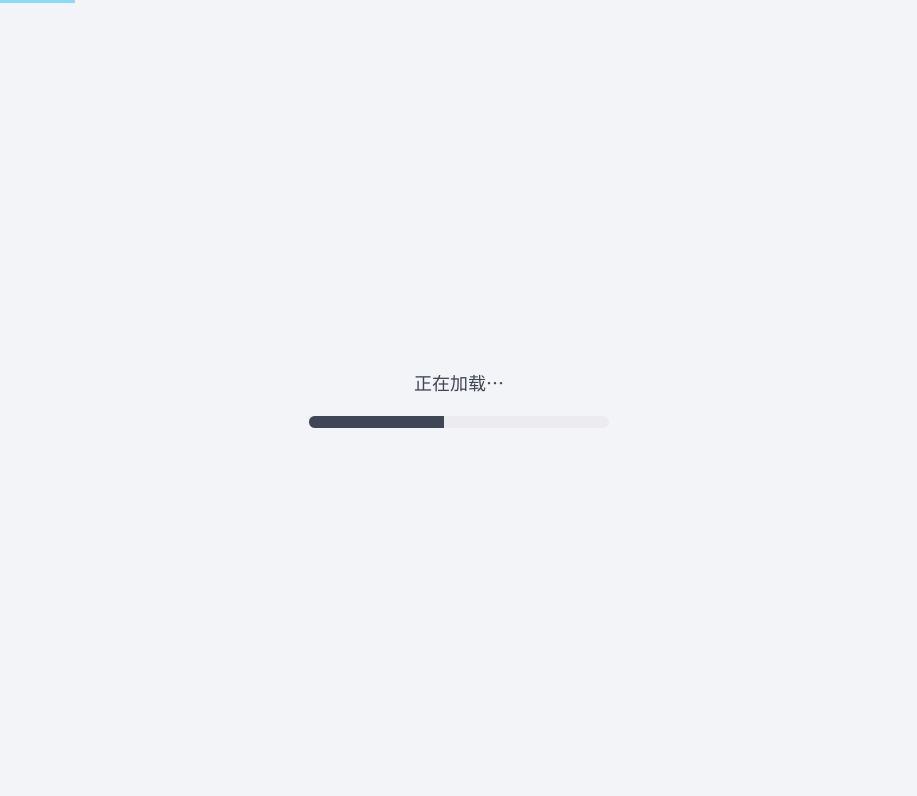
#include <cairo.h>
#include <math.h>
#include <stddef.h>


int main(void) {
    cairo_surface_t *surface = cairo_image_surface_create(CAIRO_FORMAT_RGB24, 917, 796);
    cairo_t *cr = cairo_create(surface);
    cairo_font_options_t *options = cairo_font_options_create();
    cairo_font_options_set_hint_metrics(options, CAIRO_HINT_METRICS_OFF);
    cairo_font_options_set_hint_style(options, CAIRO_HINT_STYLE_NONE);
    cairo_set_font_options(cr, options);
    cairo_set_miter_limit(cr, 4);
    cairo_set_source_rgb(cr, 0.953, 0.957, 0.965);
    cairo_paint(cr);
    cairo_set_source_rgb(cr, 0.537, 0.855, 0.992);
    cairo_rectangle(cr, 0, 0, 75, 3);
    cairo_fill(cr);
    cairo_select_font_face(cr, "Noto Sans SC", CAIRO_FONT_SLANT_NORMAL, CAIRO_FONT_WEIGHT_NORMAL);
    cairo_set_font_size(cr, 18);
    cairo_set_source_rgb(cr, 0.251, 0.275, 0.329);
    cairo_move_to(cr, 414, 390);
    cairo_show_text(cr, "正在加载…");
    cairo_new_path(cr);
    cairo_move_to(cr, 315, 416);
    cairo_line_to(cr, 444, 416);
    cairo_line_to(cr, 444, 428);
    cairo_line_to(cr, 315, 428);
    cairo_curve_to(cr, 311.5, 428, 309, 425.5, 309, 422);
    cairo_curve_to(cr, 309, 418.5, 311.5, 416, 315, 416);
    cairo_close_path(cr);
    cairo_fill(cr);
    cairo_set_source_rgb(cr, 0.922, 0.925, 0.941);
    cairo_new_path(cr);
    cairo_move_to(cr, 444, 416);
    cairo_line_to(cr, 603, 416);
    cairo_curve_to(cr, 606.5, 416, 609, 418.5, 609, 422);
    cairo_curve_to(cr, 609, 425.5, 606.5, 428, 603, 428);
    cairo_line_to(cr, 444, 428);
    cairo_close_path(cr);
    cairo_fill(cr);
    cairo_surface_write_to_png(surface, "page.png");
    cairo_font_options_destroy(options);
    cairo_destroy(cr);
    cairo_surface_destroy(surface);
    return 0;
}
